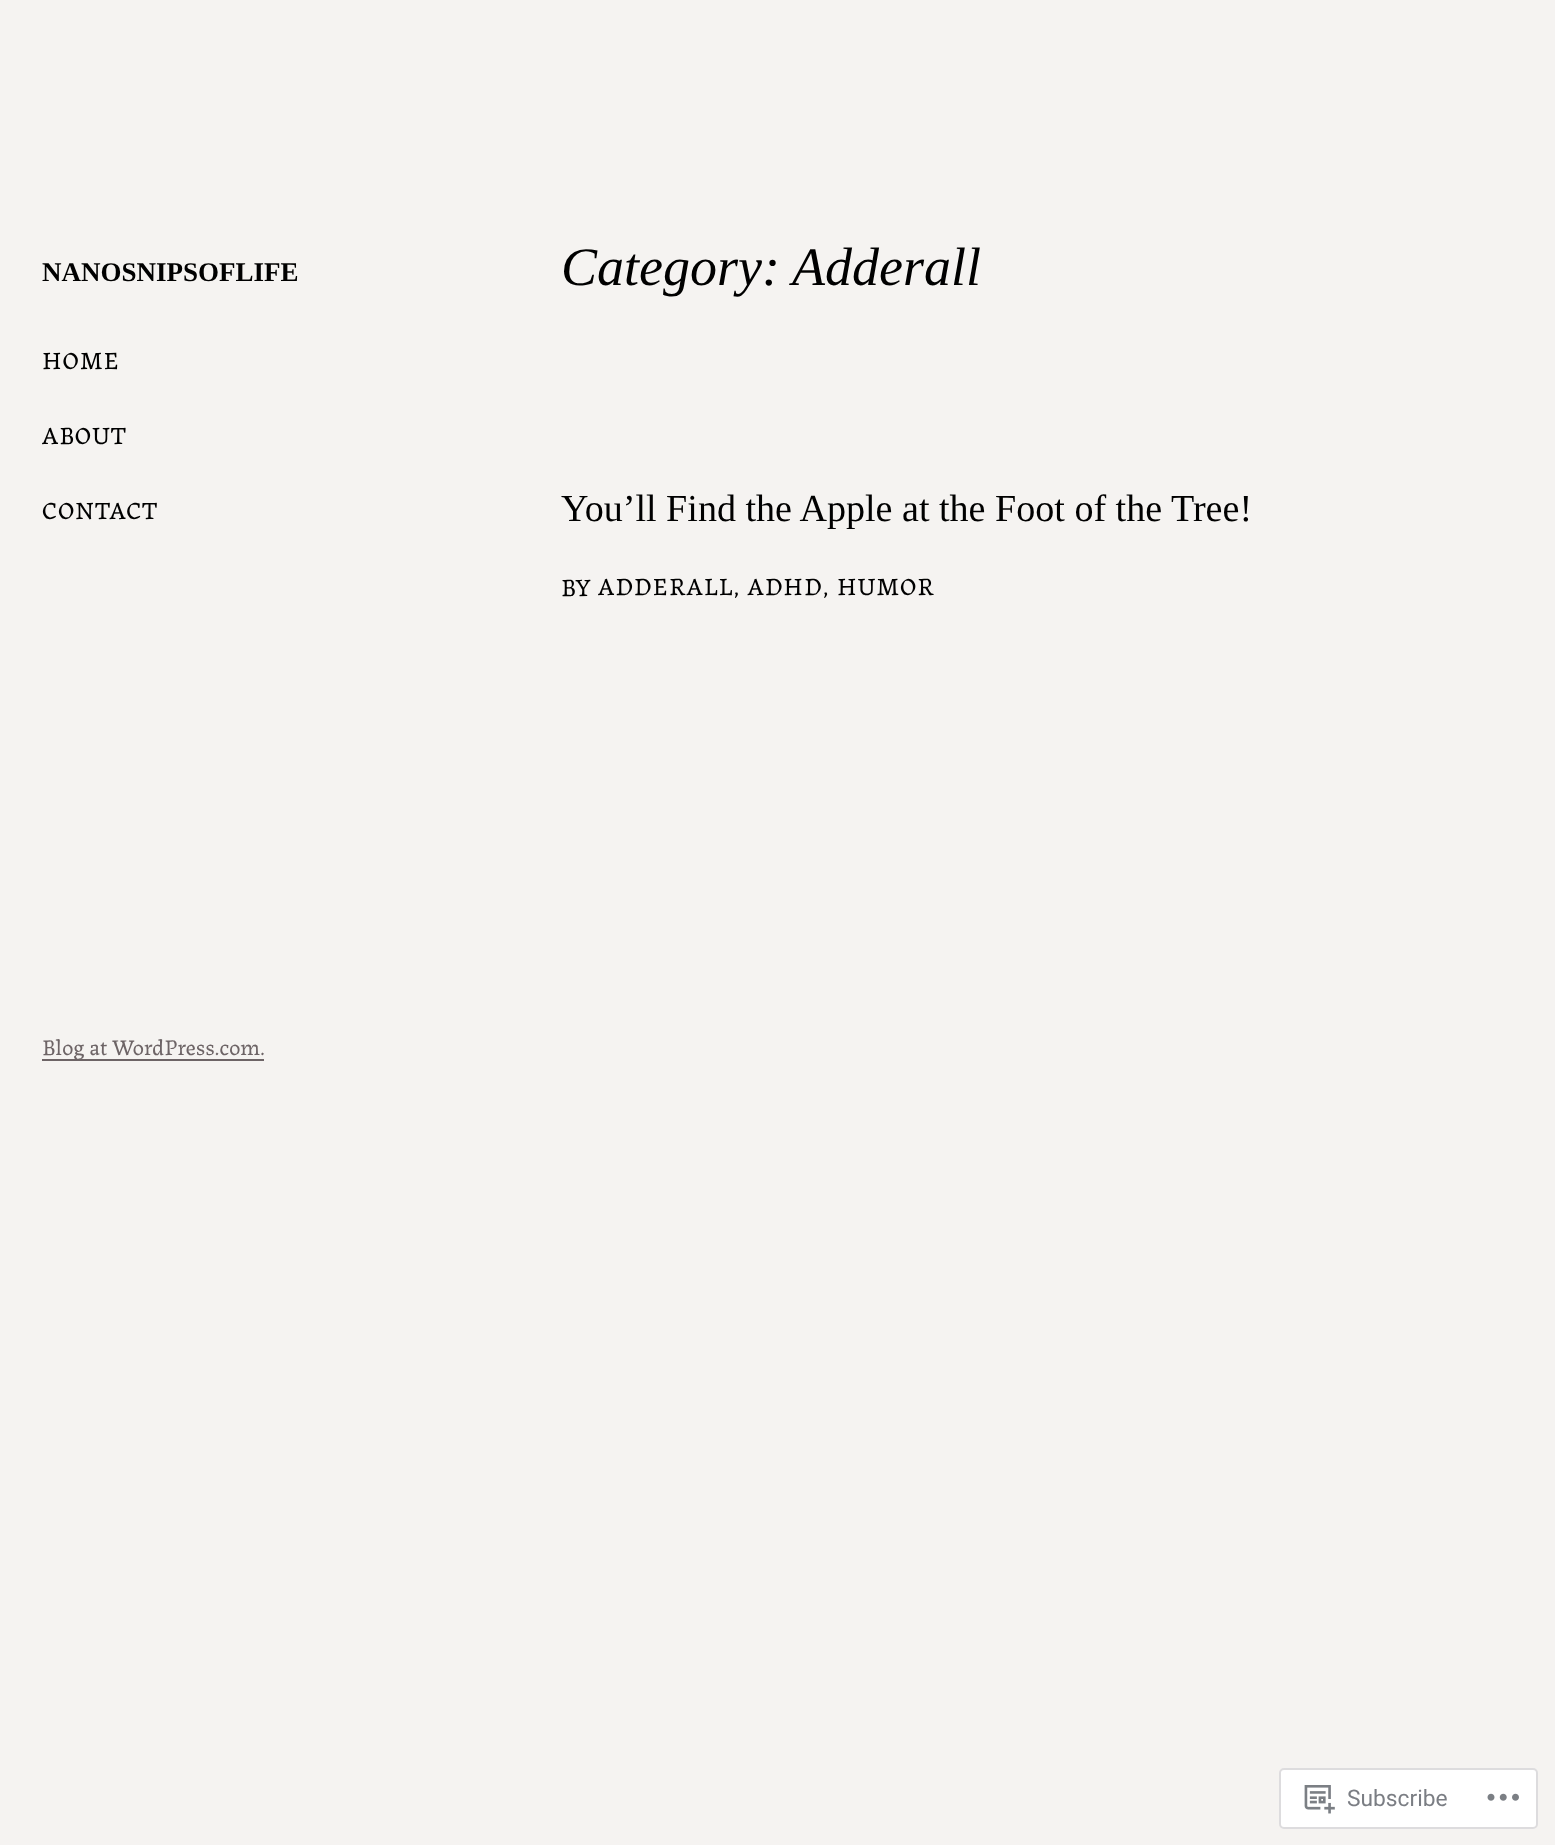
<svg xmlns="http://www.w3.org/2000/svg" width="1555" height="1845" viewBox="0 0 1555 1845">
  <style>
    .t1 { font: bold 27px Liberation Serif; fill: #000; }
    .t2 { font: 25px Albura; letter-spacing: 1px; fill: #000; }
    .t3 { font: italic 54px Liberation Serif; fill: #000; }
    .t4 { font: 38.1px Liberation Serif; fill: #000; }
    .t5 { font: 25px Albura; fill: #000; }
    .t6 { font: 22.5px Albura; fill: #6d6466; }
    .t7 { font: 22.75px Roboto; fill: #7b7e84; }
  </style>
  <rect width="100%" height="100%" fill="#f5f3f1"/>
  <text x="42" y="281" class="t1">NANOSNIPSOFLIFE</text>
  <text x="42" y="369" class="t2">HOME</text>
  <text x="42" y="444" class="t2">ABOUT</text>
  <text x="42" y="519" class="t2">CONTACT</text>
  <text x="561" y="285" class="t3">Category:</text>
  <text x="792" y="285" class="t3">Adderall</text>
  <text x="561" y="521" class="t4">You’ll Find the Apple at the Foot of the Tree!</text>
  <text x="561" y="596" class="t5">BY</text>
  <text x="598" y="595" class="t2">ADDERALL, ADHD, HUMOR</text>
  <rect x="42" y="1059" width="222" height="2" fill="#6d6466"/>
  <text x="42" y="1055" class="t6">Blog at WordPress.com.</text>
  <rect x="1280" y="1769" width="257" height="59" rx="4" fill="#fff" stroke="#dddcde" stroke-width="2"/>
  <image x="1304" y="1785" width="31" height="29" href="images/1.png"/>
  <text x="1347" y="1806" class="t7">Subscribe</text>
  <image x="1487" y="1793" width="32" height="8" href="images/2.png"/>
</svg>
